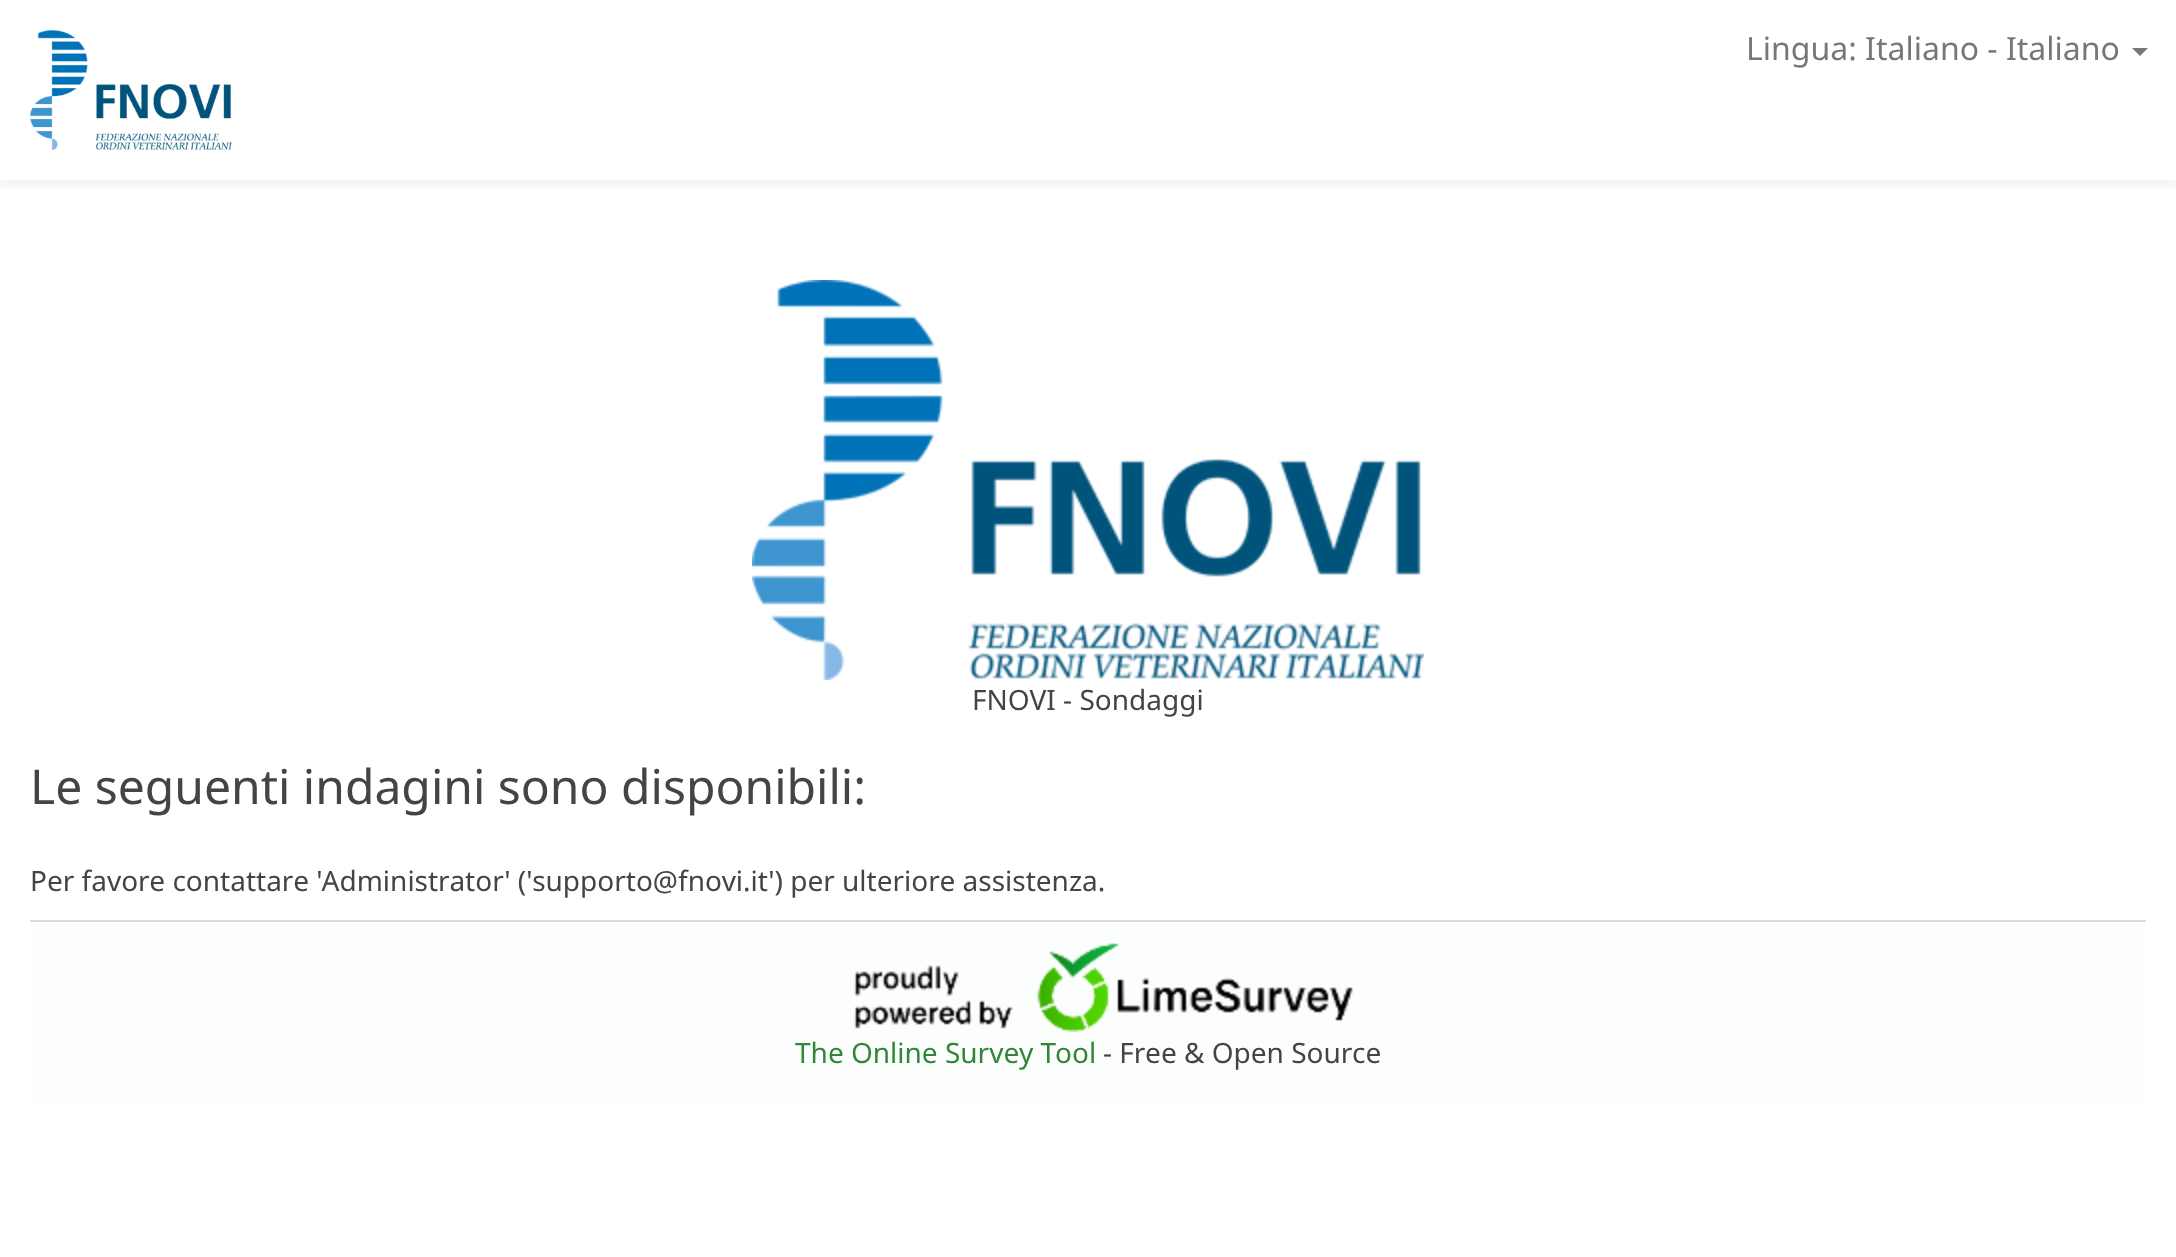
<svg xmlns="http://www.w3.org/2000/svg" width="2176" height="1257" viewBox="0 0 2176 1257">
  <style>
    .t1 { font: 32px Noto Sans; fill: #777; }
    .t2 { font: 28px Noto Sans; fill: #444; }
    .t3 { font: 48px Noto Sans; fill: #444; }
    .t4 { font: 28px Noto Sans; fill: #328637; }
  </style>
  <defs>
    <clipPath id="clip1"><rect x="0" y="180" width="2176" height="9"/></clipPath>
  </defs>
  <rect width="100%" height="100%" fill="#fff"/>
  <g clip-path="url(#clip1)">
    <rect x="0" y="6" width="2176" height="180" fill="#84888a1a" filter="blur(3px)"/>
  </g>
  <image x="30" y="30" width="202" height="120" href="images/1.png"/>
  <text x="1746" y="60" class="t1">Lingua: Italiano - Italiano</text>
  <path d="M2132 48H2148L2140 56Z" fill="#777"/>
  <image x="752" y="280" width="672" height="400" href="images/2.png"/>
  <text x="972" y="710" class="t2">FNOVI - Sondaggi</text>
  <text x="30" y="804" class="t3">Le seguenti indagini sono disponibili:</text>
  <text x="30" y="891" class="t2">Per favore contattare 'Administrator' ('supporto@fnovi.it') per ulteriore assistenza.</text>
  <rect x="30" y="922" width="2116" height="180" fill="#fcfdfd"/>
  <rect x="30" y="920" width="2116" height="2" fill="#dadada"/>
  <image x="853" y="943" width="500" height="89" href="images/3.png"/>
  <text x="795" y="1063" class="t4">The Online Survey Tool</text>
  <text x="1103" y="1063" class="t2">- Free &amp; Open Source</text>
</svg>
